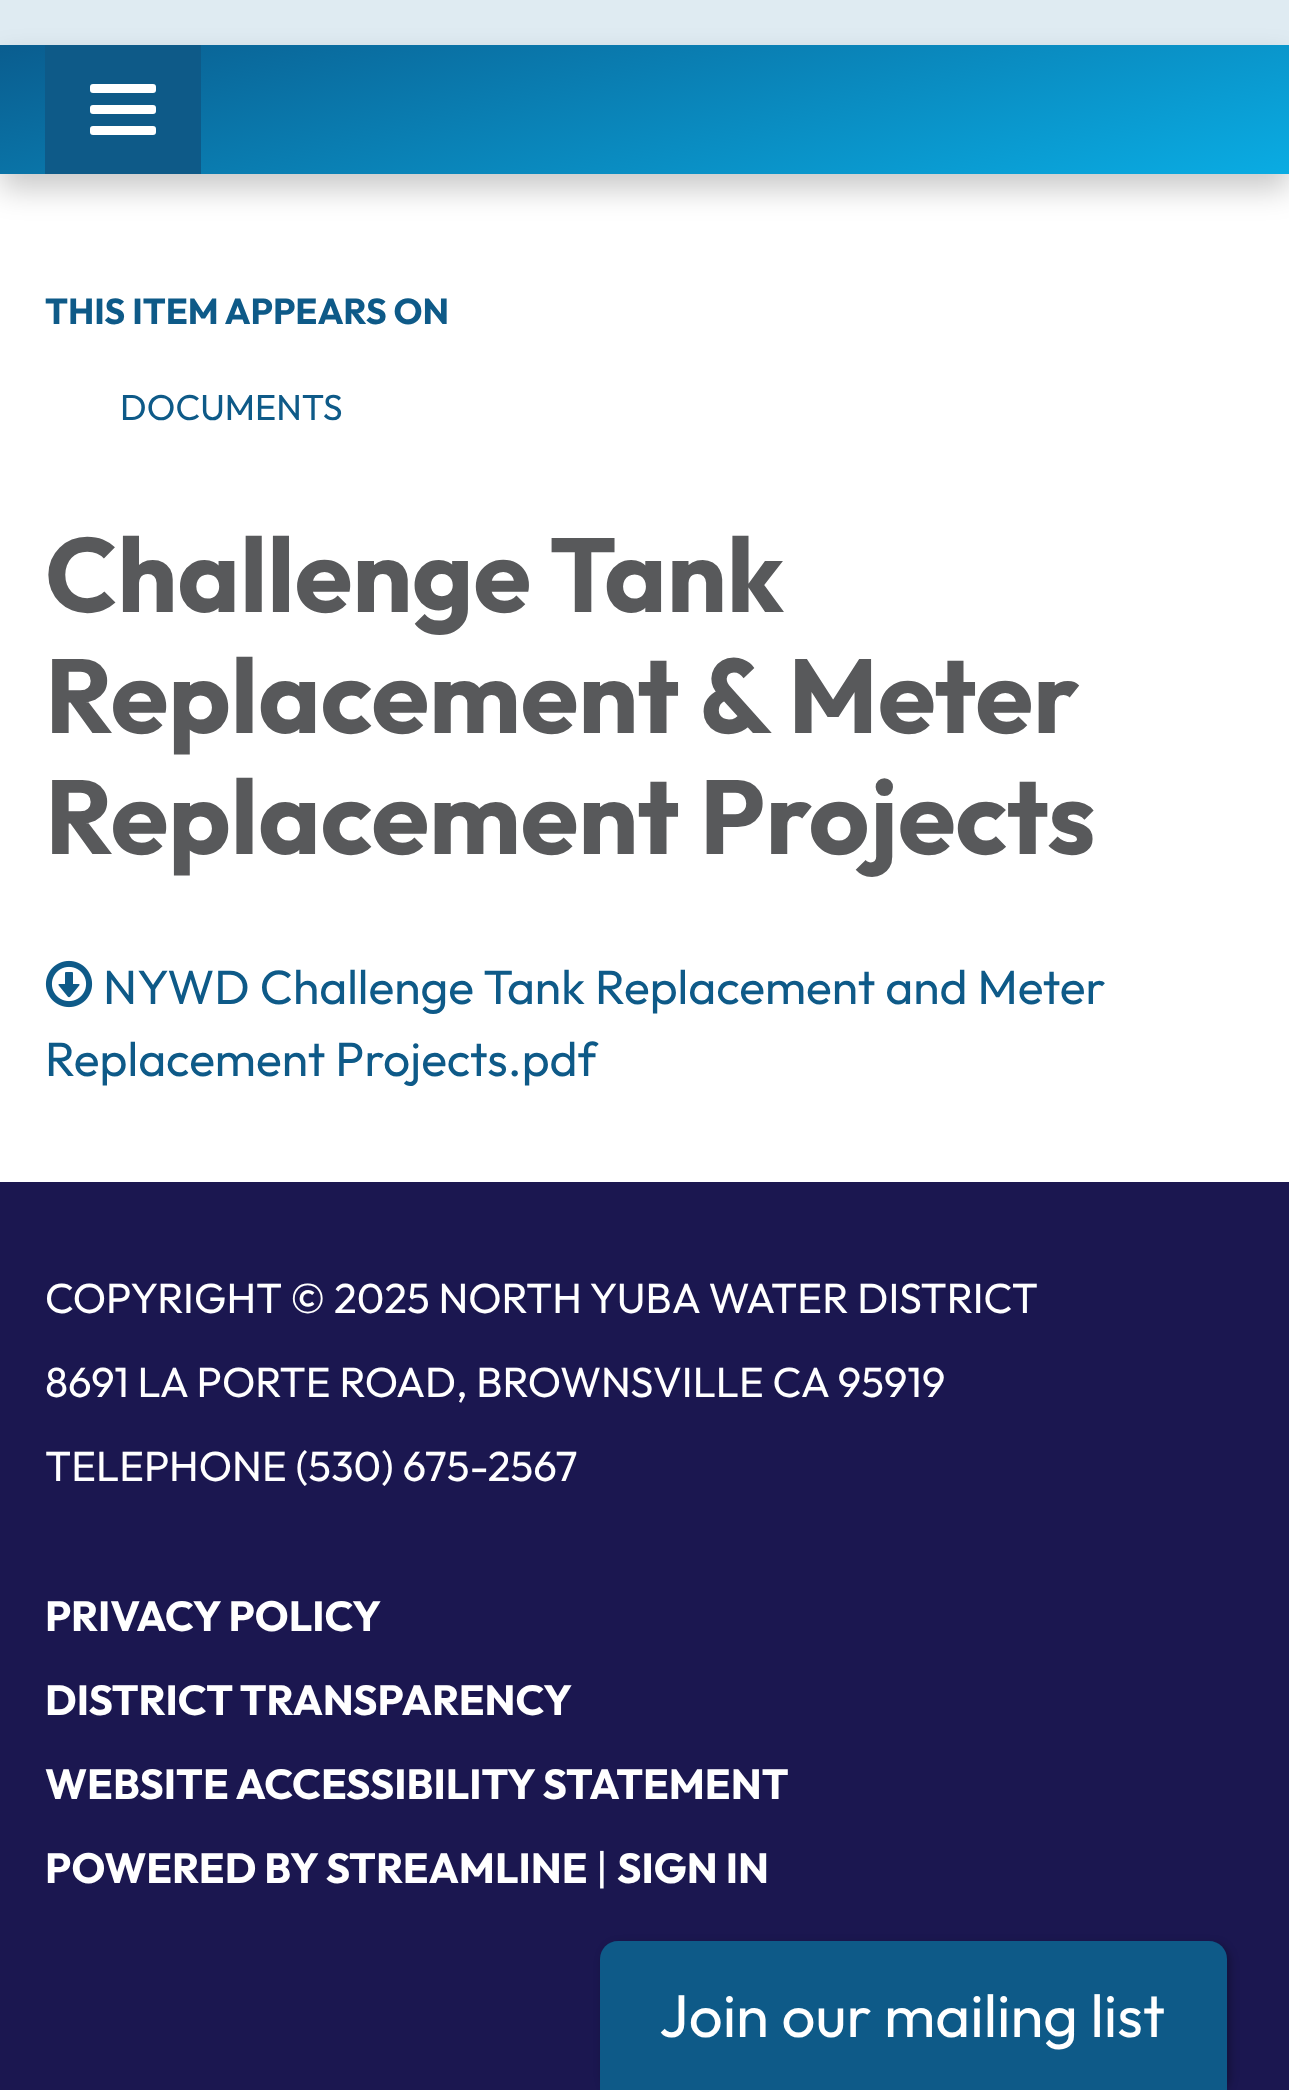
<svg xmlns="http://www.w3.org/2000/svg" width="1289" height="2090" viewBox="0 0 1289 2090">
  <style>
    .t1 { font: bold 36px Outfit; fill: #0e5a88; }
    .t2 { font: 36px Outfit; fill: #0e5a88; }
    .t3 { font: bold 105px Outfit; fill: #58595b; }
    .t4 { font: 48px Outfit; fill: #0e5a88; }
    .t5 { font: 42px Outfit; fill: #fff; }
    .t6 { font: bold 42px Outfit; fill: #fff; }
    .t7 { font: 60px Outfit; fill: #fff; }
  </style>
  <defs>
    <linearGradient id="g1" gradientUnits="userSpaceOnUse" x1="586" y1="-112" x2="704" y2="331"><stop offset="0" stop-color="#020024"/><stop offset="0" stop-color="#0a5d8f"/><stop offset="1" stop-color="#0aace3"/></linearGradient>
  </defs>
  <rect width="100%" height="100%" fill="#1b1750"/>
  <rect x="0" y="0" width="1289" height="45" fill="#dfebf2"/>
  <rect x="0" y="174" width="1289" height="1008" fill="#fff"/>
  <rect x="0" y="60" width="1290" height="129" fill="#00000036" filter="blur(15px)"/>
  <rect x="0" y="45" width="1289" height="129" fill="url(#g1)"/>
  <rect x="45" y="45" width="156" height="129" fill="#0e5a88"/>
  <rect x="90" y="84" width="66" height="9" rx="3" fill="#fff"/>
  <rect x="90" y="105" width="66" height="9" rx="3" fill="#fff"/>
  <rect x="90" y="126" width="66" height="9" rx="3" fill="#fff"/>
  <text x="45" y="324" class="t1">THIS ITEM APPEARS ON</text>
  <text x="120" y="420" class="t2">DOCUMENTS</text>
  <text x="45" y="612" class="t3">Challenge Tank</text>
  <text x="45" y="733" class="t3">Replacement &amp; Meter</text>
  <text x="45" y="854" class="t3">Replacement Projects</text>
  <image x="45" y="960" width="48" height="48" href="images/1.png"/>
  <text x="103" y="1004" class="t4">NYWD Challenge Tank Replacement and Meter</text>
  <text x="45" y="1076" class="t4">Replacement Projects.pdf</text>
  <text x="45" y="1313" class="t5">COPYRIGHT © 2025 NORTH YUBA WATER DISTRICT</text>
  <text x="45" y="1397" class="t5">8691 LA PORTE ROAD, BROWNSVILLE CA 95919</text>
  <text x="45" y="1481" class="t5">TELEPHONE (530) 675-2567</text>
  <text x="45" y="1631" class="t6">PRIVACY POLICY</text>
  <text x="45" y="1715" class="t6">DISTRICT TRANSPARENCY</text>
  <text x="45" y="1799" class="t6">WEBSITE ACCESSIBILITY STATEMENT</text>
  <text x="45" y="1883" class="t6">POWERED BY STREAMLINE</text>
  <text x="596" y="1883" class="t5">|</text>
  <text x="617" y="1883" class="t6">SIGN IN</text>
  <rect x="603" y="1944" width="627" height="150" rx="18" fill="#0000004d" filter="blur(4.5px)"/>
  <path d="M618 1941H1209C1219 1941 1227 1949 1227 1959V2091H600V1959C600 1949 608 1941 618 1941Z" fill="#0e5a88"/>
  <text x="659" y="2037" class="t7">Join our mailing list</text>
</svg>
